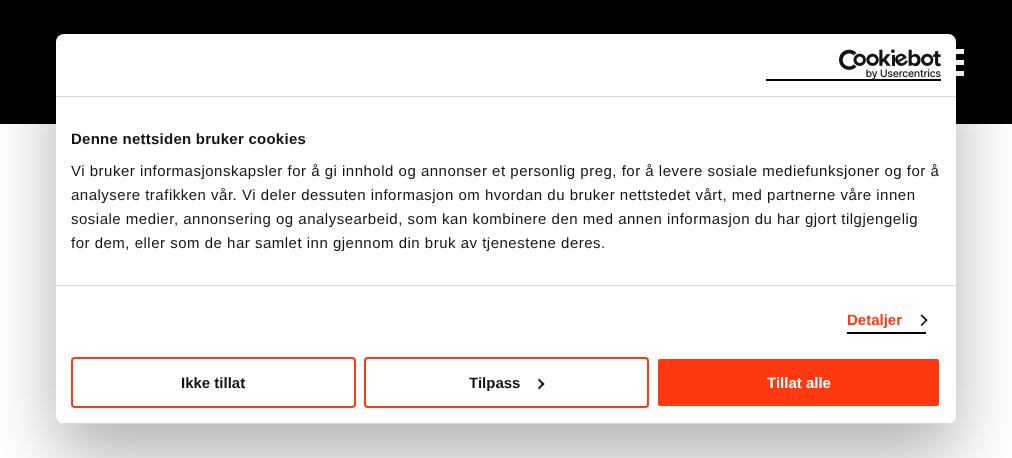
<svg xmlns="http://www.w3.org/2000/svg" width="1012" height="458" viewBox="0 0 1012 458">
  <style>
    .t1 { font: bold 15px Liberation Sans; letter-spacing: 0.25px; fill: #141414; }
    .t2 { font: 15px Liberation Sans; letter-spacing: 0.5px; fill: #141414; }
    .t3 { font: bold 15px Liberation Sans; fill: #fe390f; }
    .t4 { font: bold 15px Liberation Sans; fill: #141414; }
    .t5 { font: bold 15px Liberation Sans; fill: #fff; }
  </style>
  <defs>
    <clipPath id="clip1"><rect x="56" y="34" width="900" height="390" rx="8"/></clipPath>
  </defs>
  <rect width="100%" height="100%" fill="#fff"/>
  <rect x="0" y="0" width="1012" height="124" fill="#000"/>
  <rect x="956" y="49" width="8" height="5" fill="#fff"/>
  <rect x="956" y="60" width="8" height="5" fill="#fff"/>
  <rect x="956" y="71" width="8" height="5" fill="#fff"/>
  <rect x="56" y="66" width="900" height="390" rx="8" fill="#0000004d" filter="blur(34px)"/>
  <rect x="56" y="34" width="900" height="390" rx="8" fill="#fff"/>
  <rect x="56" y="96" width="900" height="1" fill="#d6d6d6"/>
  <rect x="766" y="79" width="175" height="2" fill="#000"/>
  <image x="839" y="49" width="102" height="30" href="images/1.png"/>
  <rect x="56" y="285" width="900" height="1" fill="#d6d6d6"/>
  <text x="71" y="144" class="t1">Denne nettsiden bruker cookies</text>
  <text x="71" y="176" class="t2">Vi bruker informasjonskapsler for å gi innhold og annonser et personlig preg, for å levere sosiale mediefunksjoner og for å</text>
  <text x="71" y="200" class="t2">analysere trafikken vår. Vi deler dessuten informasjon om hvordan du bruker nettstedet vårt, med partnerne våre innen</text>
  <text x="71" y="224" class="t2">sosiale medier, annonsering og analysearbeid, som kan kombinere den med annen informasjon du har gjort tilgjengelig</text>
  <text x="71" y="248" class="t2">for dem, eller som de har samlet inn gjennom din bruk av tjenestene deres.</text>
  <rect x="847" y="332" width="79" height="2" fill="#000"/>
  <text x="847" y="325" class="t3">Detaljer</text>
  <path d="M922 314.5L927.5 320L926.5 321.5L920.5 315.5Z" fill="#141414"/>
  <path d="M926.5 319L927.5 320L922 326L920.5 325Z" fill="#141414"/>
  <g clip-path="url(#clip1)">
    <rect x="56" y="423" width="900" height="1" fill="#d6d6d6"/>
  </g>
  <rect x="72" y="358" width="283" height="49" rx="3" fill="none" stroke="#fe390f" stroke-width="2"/>
  <text x="181" y="388" class="t4">Ikke tillat</text>
  <rect x="365" y="358" width="283" height="49" rx="3" fill="none" stroke="#fe390f" stroke-width="2"/>
  <text x="469" y="388" class="t4">Tilpass</text>
  <path d="M539 378.5L544.5 384L543 385.5L538 380Z" fill="#141414"/>
  <path d="M543 382.5L544.5 384L539 389.5L538 388Z" fill="#141414"/>
  <rect x="657" y="358" width="283" height="49" rx="3" fill="#fe390f" stroke="#fff" stroke-width="2"/>
  <text x="767" y="388" class="t5">Tillat alle</text>
</svg>
